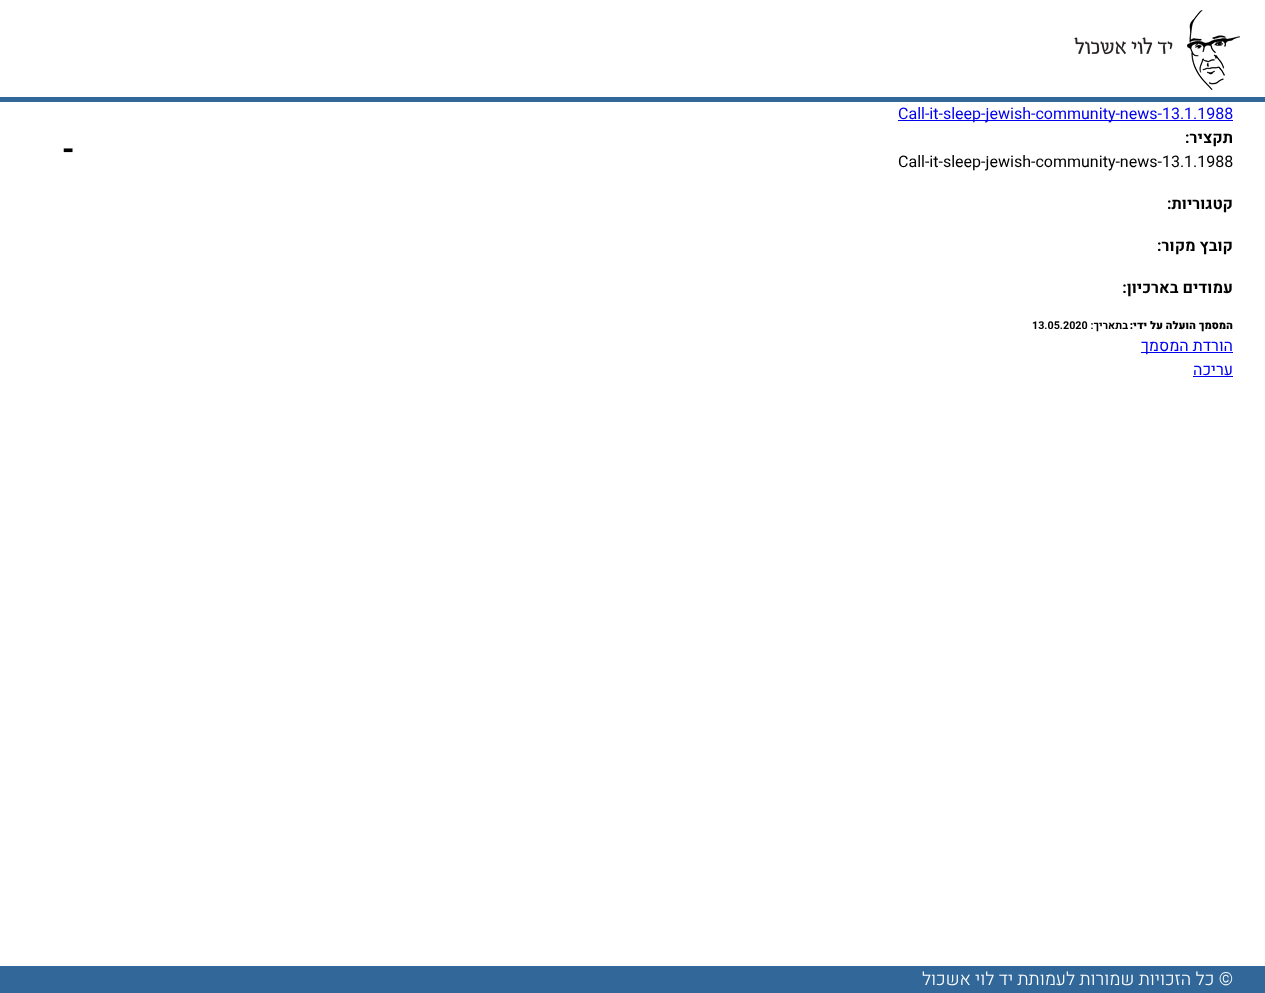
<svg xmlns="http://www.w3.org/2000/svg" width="1265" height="993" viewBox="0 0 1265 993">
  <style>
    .t1 { font: 16px Heebo; fill: #00e; }
    .t2 { font: bold 16px Heebo; direction: rtl; fill: #000; }
    .t3 { font: bold 32px Heebo; fill: #000; }
    .t4 { font: 16px Heebo; fill: #000; }
    .t5 { font: 900 10.75px Heebo; direction: rtl; fill: #000; }
    .t6 { font: bold 10.75px Heebo; direction: rtl; fill: #000; }
    .t7 { font: bold 10.75px Heebo; fill: #000; }
    .t8 { font: 16px Heebo; direction: rtl; fill: #00e; }
    .t9 { font: 300 18px Heebo; direction: rtl; fill: #fff; }
  </style>
  <rect width="100%" height="100%" fill="#fff"/>
  <rect x="0" y="97" width="1265" height="5" fill="#316799"/>
  <image x="1074" y="10" width="166" height="80" href="images/1.png"/>
  <rect x="898" y="120" width="335" height="1" fill="#00e"/>
  <text x="898" y="119" class="t1">Call-it-sleep-jewish-community-news-13.1.1988</text>
  <text x="1233" y="143" class="t2">תקציר:</text>
  <text x="62" y="160" class="t3">-</text>
  <text x="898" y="167" class="t4">Call-it-sleep-jewish-community-news-13.1.1988</text>
  <text x="1233" y="209" class="t2">קטגוריות:</text>
  <text x="1233" y="251" class="t2">קובץ מקור:</text>
  <text x="1233" y="293" class="t2">עמודים בארכיון:</text>
  <text x="1233" y="329" class="t5">המסמך הועלה על ידי:</text>
  <text x="1128" y="329" class="t6">בתאריך:</text>
  <text x="1032" y="329" class="t7">13.05.2020</text>
  <rect x="1141" y="352" width="92" height="1" fill="#00e"/>
  <text x="1233" y="351" class="t8">הורדת המסמך</text>
  <text x="1233" y="375" class="t8">עריכה</text>
  <rect x="1193" y="376" width="40" height="1" fill="#00e"/>
  <rect x="0" y="966" width="1265" height="27" fill="#316799"/>
  <text x="1233" y="985" class="t9">© כל הזכויות שמורות לעמותת יד לוי אשכול</text>
</svg>
